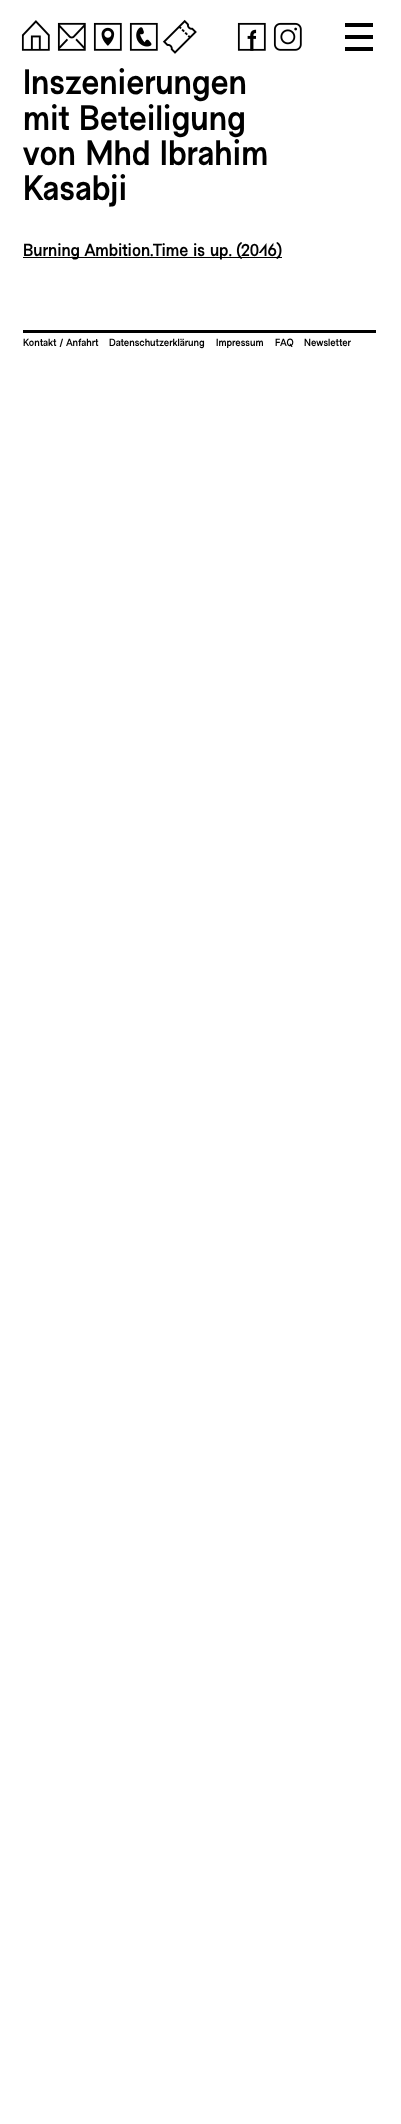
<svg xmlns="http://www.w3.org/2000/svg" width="401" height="2124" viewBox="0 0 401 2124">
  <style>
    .t1 { font: 35.25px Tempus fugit; fill: #000; }
    .t2 { font: 17.6px Tempus fugit; fill: #000; }
    .t3 { font: 10.5px Tempus fugit; fill: #000; }
  </style>
  <rect width="100%" height="100%" fill="#fff"/>
  <image x="21" y="20" width="29" height="31" href="images/1.png"/>
  <image x="57" y="22" width="29" height="29" href="images/2.png"/>
  <image x="93" y="22" width="29" height="29" href="images/3.png"/>
  <image x="129" y="22" width="29" height="29" href="images/4.png"/>
  <image x="162" y="19" width="35" height="35" href="images/5.png"/>
  <image x="237" y="22" width="29" height="29" href="images/6.png"/>
  <image x="273" y="22" width="29" height="29" href="images/7.png"/>
  <rect x="345" y="23" width="28" height="4" fill="#000"/>
  <rect x="345" y="35" width="28" height="4" fill="#000"/>
  <rect x="345" y="47" width="28" height="4" fill="#000"/>
  <text x="23" y="94" class="t1">Inszenierungen</text>
  <text x="23" y="130" class="t1">mit Beteiligung</text>
  <text x="23" y="165" class="t1">von Mhd Ibrahim</text>
  <text x="23" y="200" class="t1">Kasabji</text>
  <rect x="23" y="257" width="259" height="1" fill="#000"/>
  <text x="23" y="256" class="t2">Burning Ambition.Time is up. (2016)</text>
  <rect x="23" y="330" width="353" height="3" fill="#000"/>
  <text x="23" y="346" class="t3">Kontakt / Anfahrt</text>
  <text x="109" y="346" class="t3">Datenschutzerklärung</text>
  <text x="216" y="346" class="t3">Impressum</text>
  <text x="275" y="346" class="t3">FAQ</text>
  <text x="304" y="346" class="t3">Newsletter</text>
</svg>
